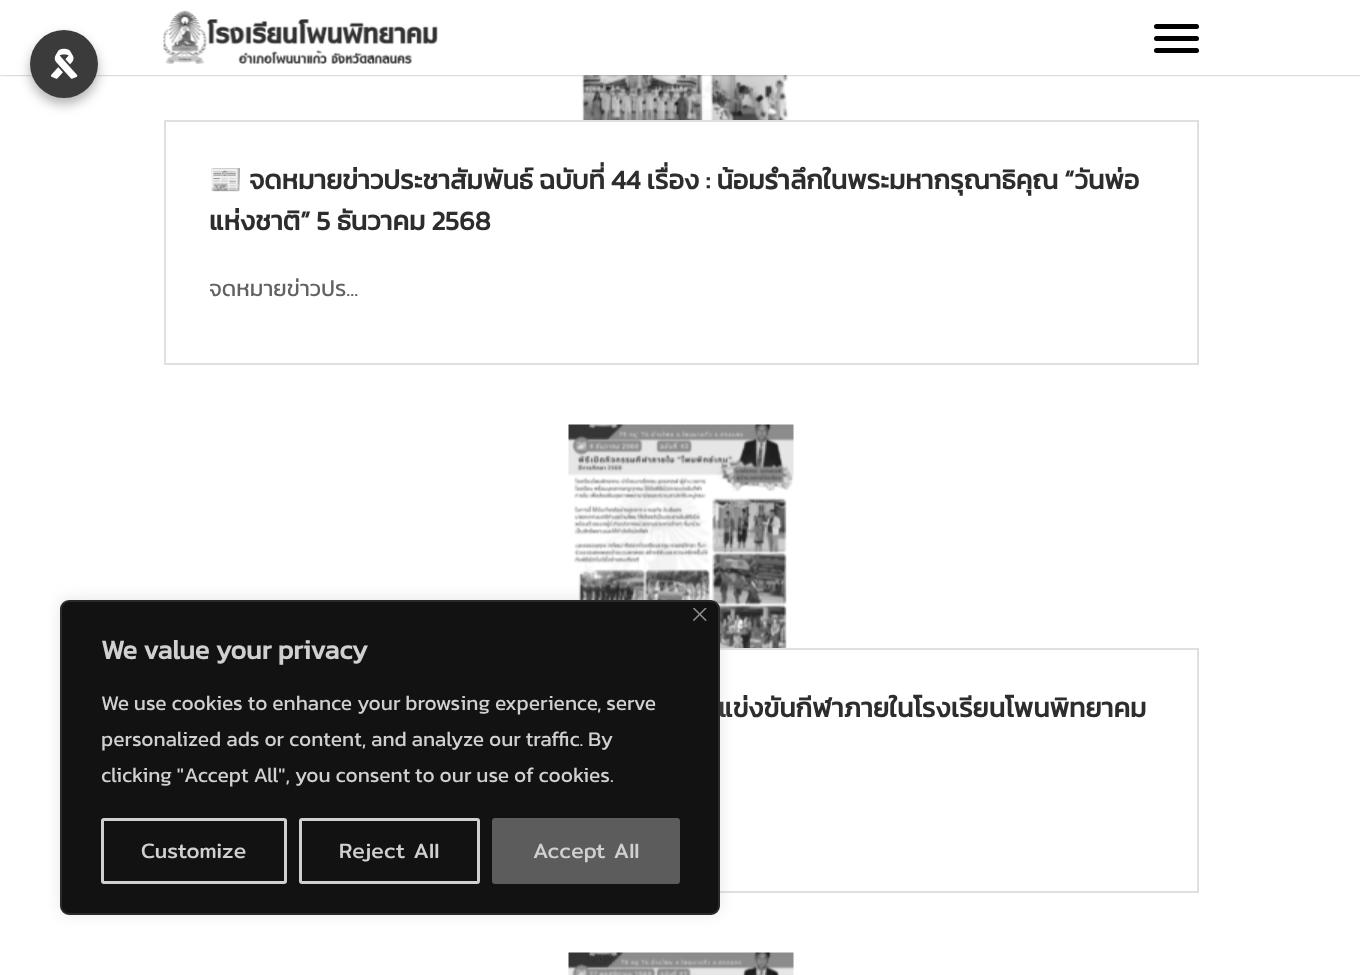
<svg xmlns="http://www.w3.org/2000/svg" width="1360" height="975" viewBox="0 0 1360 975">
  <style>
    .t1 { font: bold 27px Noto Color Emoji; fill: #2d2d2d; }
    .t2 { font: bold 27px Kanit; fill: #2d2d2d; }
    .t3 { font: 22.5px Kanit; fill: #626262; }
    .t4 { font: bold 27px Kanit; fill: #d0d0d0; }
    .t5 { font: 21px Kanit; fill: #d0d0d0; }
    .t6 { font: 21px Mitr; fill: #d0d0d0; }
  </style>
  <rect width="100%" height="100%" fill="#fff"/>
  <image x="574" y="75" width="214" height="45" href="images/3.png"/>
  <rect x="0" y="0" width="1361" height="75" fill="#00000066" filter="blur(1px)"/>
  <rect x="0" y="0" width="1360" height="75" fill="#fff"/>
  <rect x="30" y="36" width="68" height="68" rx="34" fill="#0000004d" filter="blur(6px)"/>
  <circle cx="64" cy="64" r="34" fill="#3b3b3b"/>
  <image x="51" y="48" width="27" height="31" href="images/1.png"/>
  <image x="163" y="10" width="275" height="54" href="images/2.png"/>
  <rect x="1154" y="24" width="45" height="5" rx="2.5" fill="#000"/>
  <rect x="1154" y="36" width="45" height="5" rx="2.5" fill="#000"/>
  <rect x="1154" y="48" width="45" height="5" rx="2.5" fill="#000"/>
  <rect x="165" y="121" width="1033" height="243" fill="none" stroke="#e0e0e0" stroke-width="2"/>
  <text x="209" y="189" class="t1">📰</text>
  <text x="249" y="189" class="t2">จดหมายข่าวประชาสัมพันธ์ ฉบับที่ 44 เรื่อง : น้อมรำลึกในพระมหากรุณาธิคุณ “วันพ่อ</text>
  <text x="209" y="230" class="t2">แห่งชาติ” 5 ธันวาคม 2568</text>
  <text x="209" y="296" class="t3">จดหมายข่าวปร...</text>
  <image x="568" y="424" width="226" height="224" href="images/4.png"/>
  <rect x="165" y="649" width="1033" height="243" fill="none" stroke="#e0e0e0" stroke-width="2"/>
  <text x="718" y="717" class="t2">แข่งขันกีฬาภายในโรงเรียนโพนพิทยาคม</text>
  <image x="568" y="952" width="226" height="23" href="images/5.png"/>
  <rect x="60" y="599" width="660" height="315" rx="9" fill="#ababab4d" filter="blur(7.5px)"/>
  <rect x="61" y="601" width="658" height="313" rx="8" fill="#121212" stroke="#2a2a2a" stroke-width="2"/>
  <image x="693" y="608" width="14" height="13" href="images/6.png"/>
  <text x="101" y="659" class="t4">We value your privacy</text>
  <text x="101" y="710" class="t5">We use cookies to enhance your browsing experience, serve</text>
  <text x="101" y="746" class="t5">personalized ads or content, and analyze our traffic. By</text>
  <text x="101" y="782" class="t5">clicking "Accept All", you consent to our use of cookies.</text>
  <rect x="102.5" y="819.5" width="183" height="63" rx="1.5" fill="none" stroke="#d0d0d0" stroke-width="3"/>
  <text x="141" y="858" class="t6">Customize</text>
  <rect x="300.5" y="819.5" width="178" height="63" rx="1.5" fill="none" stroke="#d0d0d0" stroke-width="3"/>
  <text x="339" y="858" class="t6">Reject All</text>
  <rect x="493.5" y="819.5" width="185" height="63" rx="1.5" fill="#5c5c5c" stroke="#5c5c5c" stroke-width="3"/>
  <text x="533" y="858" class="t6">Accept All</text>
</svg>
